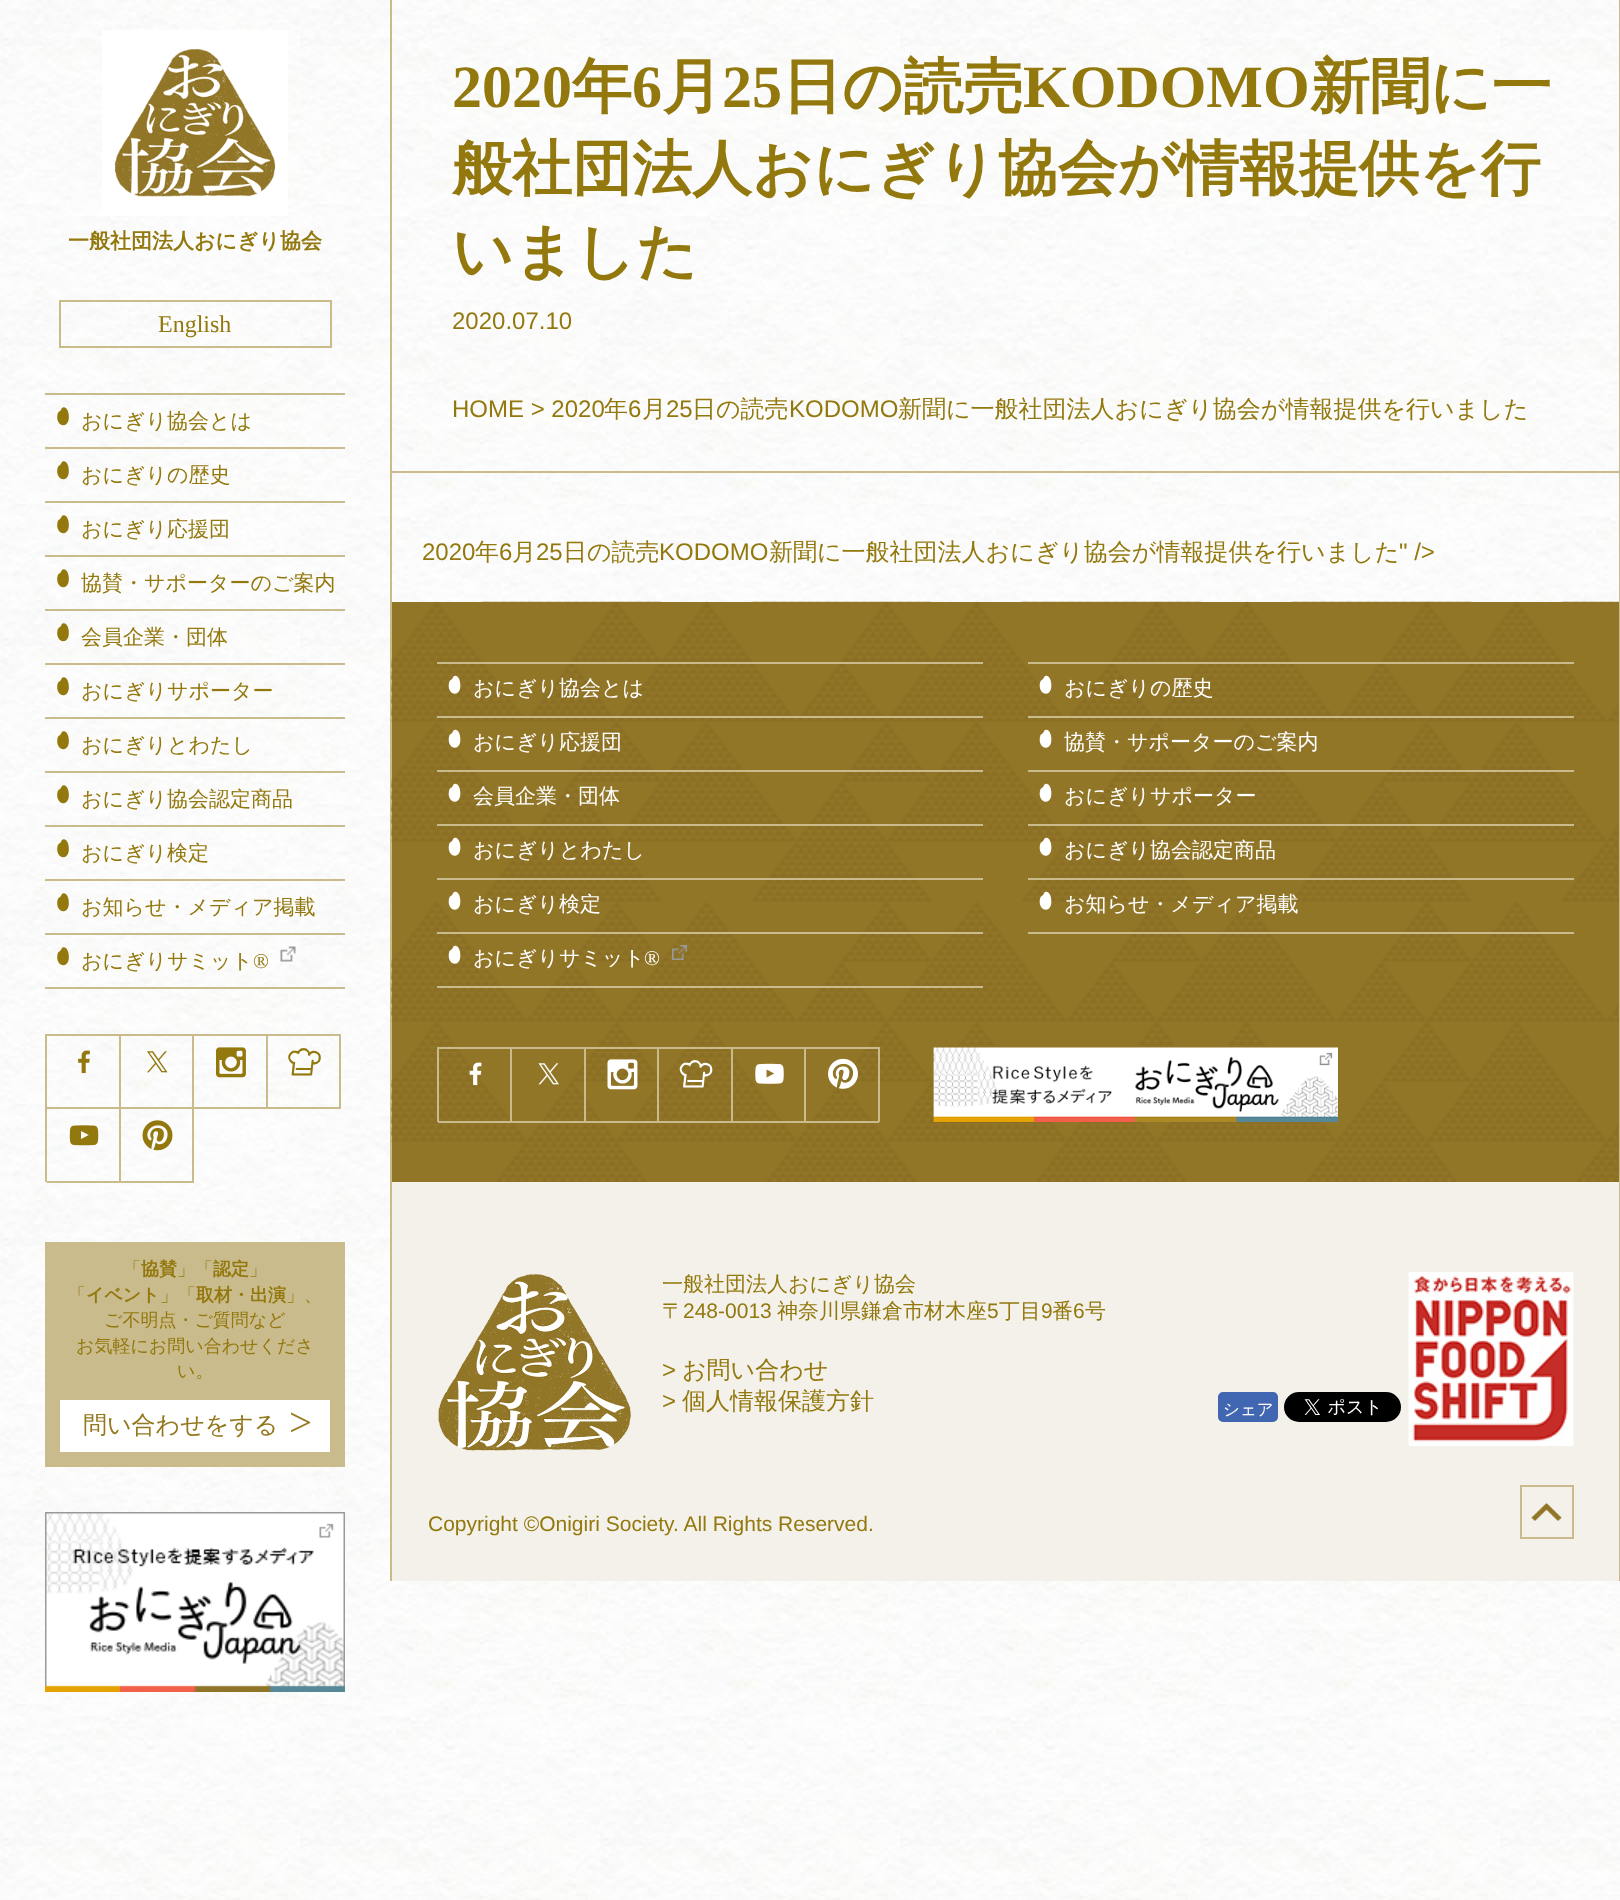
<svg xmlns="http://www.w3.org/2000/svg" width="1620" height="1900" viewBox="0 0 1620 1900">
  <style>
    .t1 { font: bold 21px WenQuanYi Zen Hei; fill: #93780e; }
    .t2 { font: 24px Liberation Serif; fill: #93780e; }
    .t3 { font: 500 21px WenQuanYi Zen Hei; fill: #93780e; }
    .t4 { font: 21px Liberation Serif; fill: #93780e; }
    .t5 { font: 500 18px WenQuanYi Zen Hei; fill: #93780e; }
    .t6 { font: bold 18px WenQuanYi Zen Hei; fill: #93780e; }
    .t7 { font: 500 24px WenQuanYi Zen Hei; fill: #93781e; }
    .t8 { font: 41px Liberation Serif; letter-spacing: -14px; fill: #93781e; }
    .t9 { font: bold 60px Liberation Serif; fill: #93780e; }
    .t10 { font: bold 60px WenQuanYi Zen Hei; fill: #93780e; }
    .t11 { font: 24px Liberation Sans; fill: #93780e; }
    .t12 { font: 500 24px WenQuanYi Zen Hei; fill: #93780e; }
    .t13 { font: 500 21px WenQuanYi Zen Hei; fill: #fff; }
    .t14 { font: 21px Liberation Serif; fill: #fff; }
    .t15 { font: 21px Liberation Sans; fill: #93780e; }
    .t16 { font: 500 16.5px WenQuanYi Zen Hei; fill: #fff; }
  </style>
  <rect width="100%" height="100%" fill="#fff"/>
  <image x="0" y="0" width="1620" height="1900" href="images/1.png"/>
  <image x="102" y="30" width="186" height="186" href="images/2.png"/>
  <text x="68" y="248" class="t1">一般社団法人おにぎり協会</text>
  <rect x="60" y="301" width="271" height="46" fill="none" stroke="#c9bc88" stroke-width="2"/>
  <text x="158" y="332" class="t2">English</text>
  <rect x="45" y="393" width="300" height="2" fill="#c9bb8b"/>
  <rect x="45" y="447" width="300" height="2" fill="#c9bb8b"/>
  <image x="57" y="407" width="12" height="19" href="images/3.png"/>
  <text x="81" y="428" class="t3">おにぎり協会とは</text>
  <rect x="45" y="501" width="300" height="2" fill="#c9bb8b"/>
  <image x="57" y="461" width="12" height="19" href="images/4.png"/>
  <text x="81" y="482" class="t3">おにぎりの歴史</text>
  <rect x="45" y="555" width="300" height="2" fill="#c9bb8b"/>
  <image x="57" y="515" width="12" height="19" href="images/5.png"/>
  <text x="81" y="536" class="t3">おにぎり応援団</text>
  <rect x="45" y="609" width="300" height="2" fill="#c9bb8b"/>
  <image x="57" y="569" width="12" height="19" href="images/6.png"/>
  <text x="81" y="590" class="t3">協賛・サポーターのご案内</text>
  <rect x="45" y="663" width="300" height="2" fill="#c9bb8b"/>
  <image x="57" y="623" width="12" height="19" href="images/7.png"/>
  <text x="81" y="644" class="t3">会員企業・団体</text>
  <rect x="45" y="717" width="300" height="2" fill="#c9bb8b"/>
  <image x="57" y="677" width="12" height="19" href="images/8.png"/>
  <text x="81" y="698" class="t3">おにぎりサポーター</text>
  <rect x="45" y="771" width="300" height="2" fill="#c9bb8b"/>
  <image x="57" y="731" width="12" height="19" href="images/9.png"/>
  <text x="81" y="752" class="t3">おにぎりとわたし</text>
  <rect x="45" y="825" width="300" height="2" fill="#c9bb8b"/>
  <image x="57" y="785" width="12" height="19" href="images/10.png"/>
  <text x="81" y="806" class="t3">おにぎり協会認定商品</text>
  <rect x="45" y="879" width="300" height="2" fill="#c9bb8b"/>
  <image x="57" y="839" width="12" height="19" href="images/11.png"/>
  <text x="81" y="860" class="t3">おにぎり検定</text>
  <rect x="45" y="933" width="300" height="2" fill="#c9bb8b"/>
  <image x="57" y="893" width="12" height="19" href="images/12.png"/>
  <text x="81" y="914" class="t3">お知らせ・メディア掲載</text>
  <rect x="45" y="987" width="300" height="2" fill="#c9bb8b"/>
  <image x="57" y="947" width="12" height="19" href="images/13.png"/>
  <text x="81" y="968" class="t3">おにぎりサミット</text>
  <text x="253" y="968" class="t4">®</text>
  <image x="280" y="946" width="16" height="16" href="images/14.png"/>
  <rect x="45" y="1034" width="296" height="2" fill="#c9bb8b"/>
  <rect x="45" y="1034" width="2" height="148" fill="#c9bb8b"/>
  <rect x="119" y="1035" width="2" height="147" fill="#c9bb8b"/>
  <rect x="47" y="1107" width="73" height="2" fill="#c9bb8b"/>
  <image x="78" y="1050" width="12" height="24" href="images/15.png"/>
  <rect x="192" y="1035" width="2" height="147" fill="#c9bb8b"/>
  <rect x="120" y="1107" width="74" height="2" fill="#c9bb8b"/>
  <image x="147" y="1051" width="21" height="22" href="images/16.png"/>
  <rect x="266" y="1035" width="2" height="74" fill="#c9bb8b"/>
  <rect x="194" y="1107" width="73" height="2" fill="#c9bb8b"/>
  <image x="216" y="1047" width="30" height="31" href="images/17.png"/>
  <rect x="339" y="1035" width="2" height="74" fill="#c9bb8b"/>
  <rect x="267" y="1107" width="74" height="2" fill="#c9bb8b"/>
  <image x="288" y="1048" width="33" height="28" href="images/18.png"/>
  <image x="142" y="1120" width="31" height="31" href="images/19.png"/>
  <rect x="47" y="1181" width="147" height="2" fill="#c9bb8b"/>
  <image x="69" y="1125" width="30" height="21" href="images/20.png"/>
  <rect x="45" y="1242" width="300" height="225" fill="#c9bb8b"/>
  <text x="123" y="1275" class="t5">「</text>
  <text x="141" y="1275" class="t6">協賛</text>
  <text x="177" y="1275" class="t5">」「</text>
  <text x="213" y="1275" class="t6">認定</text>
  <text x="249" y="1275" class="t5">」</text>
  <text x="68" y="1301" class="t5">「</text>
  <text x="86" y="1301" class="t6">イベント</text>
  <text x="160" y="1301" class="t5">」「</text>
  <text x="196" y="1301" class="t6">取材・出演</text>
  <text x="286" y="1301" class="t5">」、</text>
  <text x="104" y="1326" class="t5">ご不明点・ご質問など</text>
  <text x="76" y="1352" class="t5">お気軽にお問い合わせくださ</text>
  <text x="177" y="1377" class="t5">い。</text>
  <rect x="60" y="1400" width="270" height="52" fill="#fff"/>
  <text x="83" y="1433" class="t7">問い合わせをする</text>
  <text x="289" y="1436" class="t8">&gt;</text>
  <image x="45" y="1512" width="300" height="180" href="images/21.png"/>
  <rect x="1619" y="0" width="1" height="1581" fill="#c9bb8b"/>
  <rect x="390" y="0" width="2" height="1581" fill="#c9bb8b"/>
  <text x="452" y="107" class="t9">2020</text>
  <text x="572" y="107" class="t10">年</text>
  <text x="632" y="107" class="t9">6</text>
  <text x="662" y="107" class="t10">月</text>
  <text x="722" y="107" class="t9">25</text>
  <text x="782" y="107" class="t10">日の読売</text>
  <text x="1023" y="107" class="t9">KODOMO</text>
  <text x="1310" y="107" class="t10">新聞に一</text>
  <text x="452" y="189" class="t10">般社団法人おにぎり協会が情報提供を行</text>
  <text x="452" y="272" class="t10">いました</text>
  <text x="452" y="329" class="t11">2020.07.10</text>
  <rect x="392" y="471" width="1227" height="2" fill="#c9bb8b"/>
  <text x="452" y="417" class="t11">HOME &gt; 2020</text>
  <text x="604" y="417" class="t12">年</text>
  <text x="628" y="417" class="t11">6</text>
  <text x="642" y="417" class="t12">月</text>
  <text x="666" y="417" class="t11">25</text>
  <text x="692" y="417" class="t12">日の読売</text>
  <text x="789" y="417" class="t11">KODOMO</text>
  <text x="898" y="417" class="t12">新聞に一般社団法人おにぎり協会が情報提供を行いました</text>
  <text x="422" y="560" class="t11">2020</text>
  <text x="475" y="560" class="t12">年</text>
  <text x="499" y="560" class="t11">6</text>
  <text x="512" y="560" class="t12">月</text>
  <text x="536" y="560" class="t11">25</text>
  <text x="563" y="560" class="t12">日の読売</text>
  <text x="659" y="560" class="t11">KODOMO</text>
  <text x="769" y="560" class="t12">新聞に一般社団法人おにぎり協会が情報提供を行いました</text>
  <text x="1399" y="560" class="t11">" /&gt;</text>
  <rect x="392" y="1182" width="1227" height="399" fill="#f3f1ea"/>
  <rect x="392" y="602" width="1227" height="580" fill="#927628"/>
  <image x="391" y="601" width="1228" height="581" href="images/22.png"/>
  <rect x="437" y="662" width="546" height="2" fill="#c9bb8b"/>
  <rect x="437" y="716" width="546" height="2" fill="#c9bb8b"/>
  <image x="448" y="675" width="13" height="19" href="images/23.png"/>
  <text x="473" y="695" class="t13">おにぎり協会とは</text>
  <rect x="1028" y="662" width="546" height="2" fill="#c9bb8b"/>
  <rect x="1028" y="716" width="546" height="2" fill="#c9bb8b"/>
  <image x="1039" y="675" width="13" height="19" href="images/24.png"/>
  <text x="1064" y="695" class="t13">おにぎりの歴史</text>
  <rect x="437" y="770" width="546" height="2" fill="#c9bb8b"/>
  <image x="448" y="729" width="13" height="19" href="images/25.png"/>
  <text x="473" y="749" class="t13">おにぎり応援団</text>
  <rect x="1028" y="770" width="546" height="2" fill="#c9bb8b"/>
  <image x="1039" y="729" width="13" height="19" href="images/26.png"/>
  <text x="1064" y="749" class="t13">協賛・サポーターのご案内</text>
  <rect x="437" y="824" width="546" height="2" fill="#c9bb8b"/>
  <image x="448" y="783" width="13" height="19" href="images/27.png"/>
  <text x="473" y="803" class="t13">会員企業・団体</text>
  <rect x="1028" y="824" width="546" height="2" fill="#c9bb8b"/>
  <image x="1039" y="783" width="13" height="19" href="images/26.png"/>
  <text x="1064" y="803" class="t13">おにぎりサポーター</text>
  <rect x="437" y="878" width="546" height="2" fill="#c9bb8b"/>
  <image x="448" y="837" width="13" height="19" href="images/28.png"/>
  <text x="473" y="857" class="t13">おにぎりとわたし</text>
  <rect x="1028" y="878" width="546" height="2" fill="#c9bb8b"/>
  <image x="1039" y="837" width="13" height="19" href="images/29.png"/>
  <text x="1064" y="857" class="t13">おにぎり協会認定商品</text>
  <rect x="437" y="932" width="546" height="2" fill="#c9bb8b"/>
  <image x="448" y="891" width="13" height="19" href="images/26.png"/>
  <text x="473" y="911" class="t13">おにぎり検定</text>
  <rect x="1028" y="932" width="546" height="2" fill="#c9bb8b"/>
  <image x="1039" y="891" width="13" height="19" href="images/30.png"/>
  <text x="1064" y="911" class="t13">お知らせ・メディア掲載</text>
  <rect x="437" y="986" width="546" height="2" fill="#c9bb8b"/>
  <image x="448" y="945" width="13" height="19" href="images/31.png"/>
  <text x="473" y="965" class="t13">おにぎりサミット</text>
  <text x="644" y="965" class="t14">®</text>
  <image x="672" y="945" width="15" height="15" href="images/32.png"/>
  <rect x="437" y="1047" width="2" height="75" fill="#c9bb8b"/>
  <rect x="438" y="1047" width="147" height="2" fill="#c9bb8b"/>
  <rect x="510" y="1047" width="2" height="75" fill="#c9bb8b"/>
  <rect x="438" y="1121" width="74" height="2" fill="#c9bb8b"/>
  <image x="469" y="1062" width="13" height="24" href="images/33.png"/>
  <rect x="584" y="1047" width="2" height="75" fill="#c9bb8b"/>
  <rect x="512" y="1121" width="73" height="2" fill="#c9bb8b"/>
  <image x="538" y="1063" width="21" height="22" href="images/34.png"/>
  <rect x="585" y="1047" width="147" height="2" fill="#c9bb8b"/>
  <rect x="657" y="1047" width="2" height="75" fill="#c9bb8b"/>
  <rect x="585" y="1121" width="74" height="2" fill="#c9bb8b"/>
  <image x="607" y="1059" width="31" height="31" href="images/35.png"/>
  <rect x="731" y="1047" width="2" height="75" fill="#c9bb8b"/>
  <rect x="659" y="1121" width="73" height="2" fill="#c9bb8b"/>
  <image x="679" y="1060" width="34" height="28" href="images/36.png"/>
  <rect x="732" y="1047" width="147" height="2" fill="#c9bb8b"/>
  <rect x="804" y="1047" width="2" height="75" fill="#c9bb8b"/>
  <rect x="732" y="1121" width="74" height="2" fill="#c9bb8b"/>
  <image x="755" y="1063" width="29" height="21" href="images/37.png"/>
  <rect x="878" y="1047" width="2" height="75" fill="#c9bb8b"/>
  <rect x="806" y="1121" width="73" height="2" fill="#c9bb8b"/>
  <image x="828" y="1058" width="30" height="31" href="images/38.png"/>
  <image x="933" y="1047" width="405" height="75" href="images/39.png"/>
  <image x="438" y="1274" width="193" height="177" href="images/40.png"/>
  <text x="662" y="1291" class="t3">一般社団法人おにぎり協会</text>
  <text x="662" y="1318" class="t3">〒</text>
  <text x="683" y="1318" class="t15">248-0013</text>
  <text x="777" y="1318" class="t3">神奈川県鎌倉市材木座</text>
  <text x="987" y="1318" class="t15">5</text>
  <text x="999" y="1318" class="t3">丁目</text>
  <text x="1041" y="1318" class="t15">9</text>
  <text x="1052" y="1318" class="t3">番</text>
  <text x="1073" y="1318" class="t15">6</text>
  <text x="1085" y="1318" class="t3">号</text>
  <text x="662" y="1378" class="t11">&gt;</text>
  <text x="682" y="1378" class="t12">お問い合わせ</text>
  <text x="662" y="1409" class="t11">&gt;</text>
  <text x="682" y="1409" class="t12">個人情報保護方針</text>
  <rect x="1219" y="1393" width="58" height="28" rx="4" fill="#4267b2" stroke="#4267b2" stroke-width="2"/>
  <text x="1223" y="1415" class="t16">シェア</text>
  <image x="1284" y="1392" width="117" height="30" href="images/41.png"/>
  <image x="1408" y="1272" width="166" height="174" href="images/42.png"/>
  <text x="428" y="1531" class="t15">Copyright ©Onigiri Society. All Rights Reserved.</text>
  <rect x="1521" y="1486" width="52" height="52" fill="none" stroke="#c9bb8b" stroke-width="2"/>
  <image x="1531" y="1503" width="31" height="18" href="images/43.png"/>
</svg>
